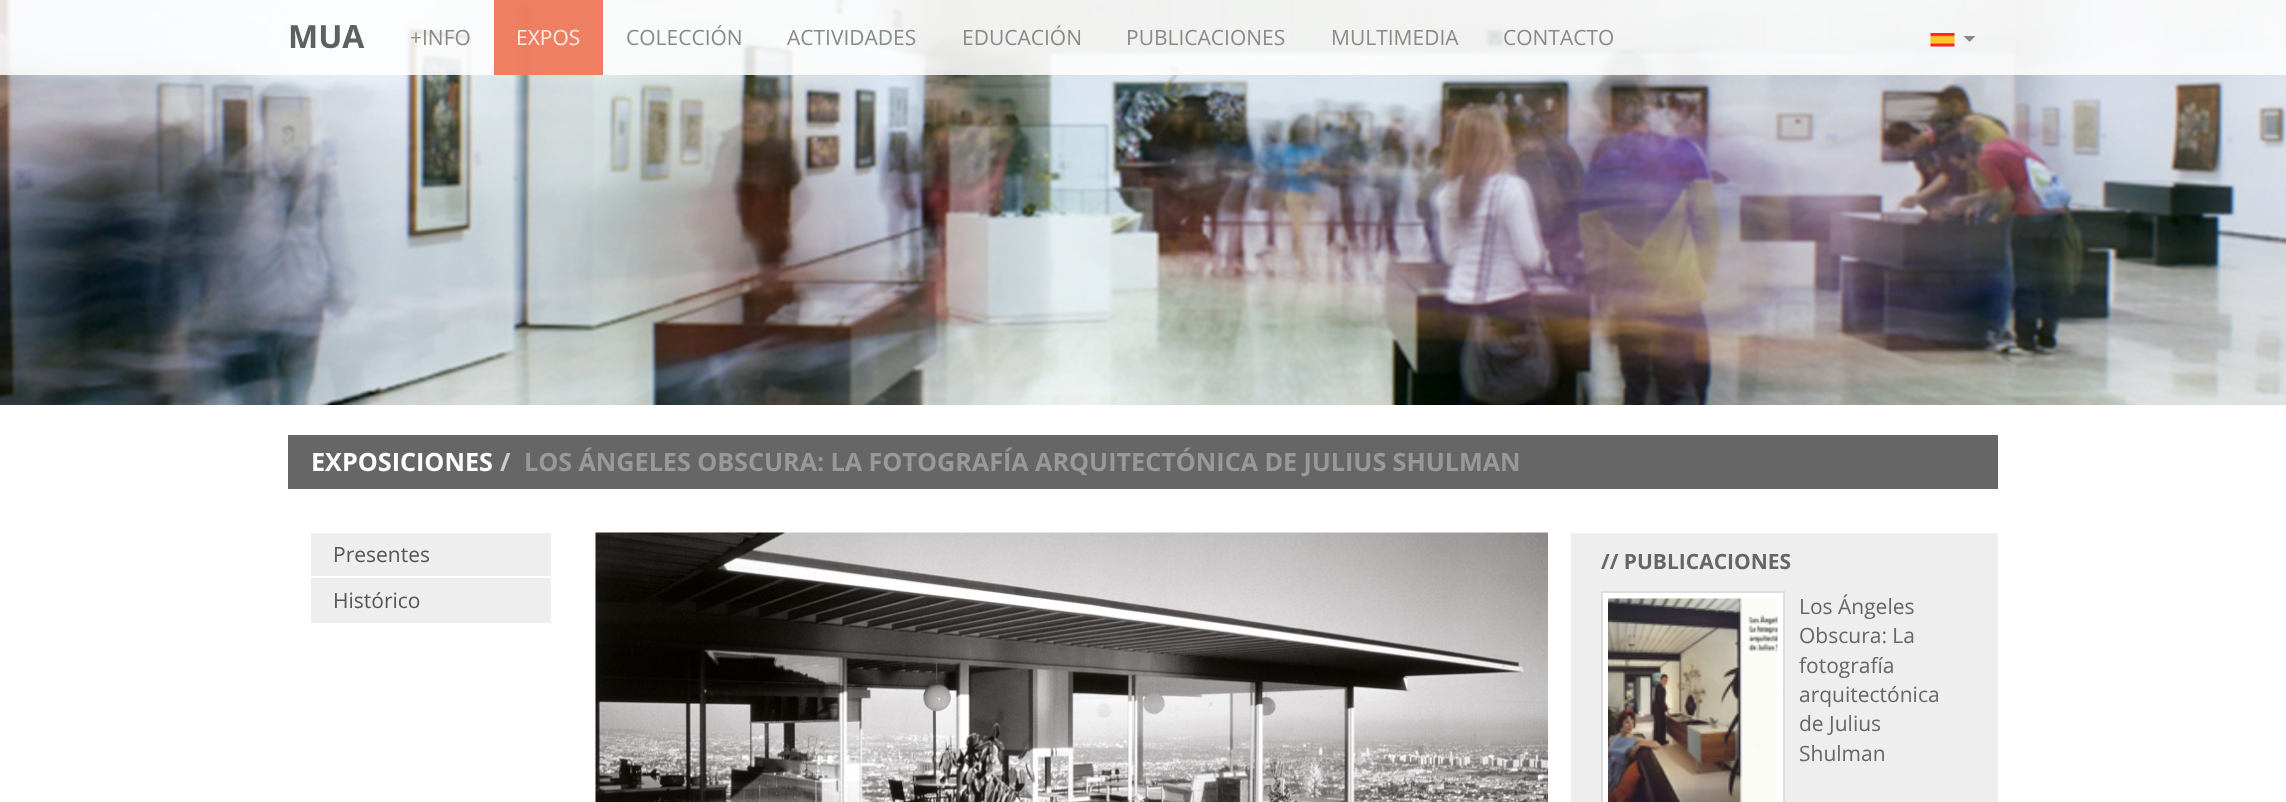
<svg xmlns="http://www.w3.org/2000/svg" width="2286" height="802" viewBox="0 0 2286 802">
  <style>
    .t1 { font: bold 32px Open Sans; fill: #5f6060; }
    .t2 { font: 21px Open Sans; fill: #8a8a8a; }
    .t3 { font: 21px Open Sans; fill: #fdece7; }
    .t4 { font: bold 25.2px Open Sans; fill: #fff; }
    .t5 { font: bold 25.2px Open Sans; fill: #ccc; }
    .t6 { font: bold 25.2px Open Sans; fill: #999; }
    .t7 { font: 21px Open Sans; fill: #555; }
    .t8 { font: bold 21px Open Sans; fill: #666; }
    .t9 { font: 21px Open Sans; fill: #666; }
  </style>
  <rect width="100%" height="100%" fill="#fff"/>
  <image x="0" y="0" width="2286" height="405" href="images/1.png"/>
  <rect x="0" y="0" width="2286" height="75" fill="#ffffffd9"/>
  <text x="288" y="48" class="t1">MUA</text>
  <text x="410" y="45" class="t2">+INFO</text>
  <rect x="494" y="0" width="109" height="75" fill="#ed6947d9"/>
  <text x="516" y="45" class="t3">EXPOS</text>
  <text x="626" y="45" class="t2">COLECCIÓN</text>
  <text x="787" y="45" class="t2">ACTIVIDADES</text>
  <text x="962" y="45" class="t2">EDUCACIÓN</text>
  <text x="1126" y="45" class="t2">PUBLICACIONES</text>
  <text x="1331" y="45" class="t2">MULTIMEDIA</text>
  <text x="1503" y="45" class="t2">CONTACTO</text>
  <image x="1930" y="33" width="25" height="14" href="images/2.png"/>
  <path d="M1963.5 36H1975.5L1969.5 42Z" fill="#8a8a8a"/>
  <rect x="288" y="435" width="1710" height="54" fill="#666"/>
  <text x="311" y="471" class="t4">EXPOSICIONES</text>
  <text x="500" y="471" class="t5">/</text>
  <text x="524" y="471" word-spacing="-0.25" class="t6">LOS ÁNGELES OBSCURA: LA FOTOGRAFÍA ARQUITECTÓNICA DE JULIUS SHULMAN</text>
  <rect x="311" y="533" width="240" height="43" fill="#eee"/>
  <text x="333" y="562" class="t7">Presentes</text>
  <rect x="311" y="578" width="240" height="45" fill="#eee"/>
  <text x="333" y="608" class="t7">Histórico</text>
  <image x="595" y="532" width="953" height="270" href="images/3.png"/>
  <rect x="1571" y="533" width="427" height="269" fill="#eee"/>
  <text x="1601" y="569" class="t8">// PUBLICACIONES</text>
  <rect x="1602" y="592" width="182" height="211" fill="#fff" stroke="#ddd" stroke-width="2"/>
  <image x="1608" y="598" width="170" height="204" href="images/4.png"/>
  <text x="1799" y="614" class="t9">Los Ángeles</text>
  <text x="1799" y="643" class="t9">Obscura: La</text>
  <text x="1799" y="673" class="t9">fotografía</text>
  <text x="1799" y="702" class="t9">arquitectónica</text>
  <text x="1799" y="731" class="t9">de Julius</text>
  <text x="1799" y="761" class="t9">Shulman</text>
</svg>
